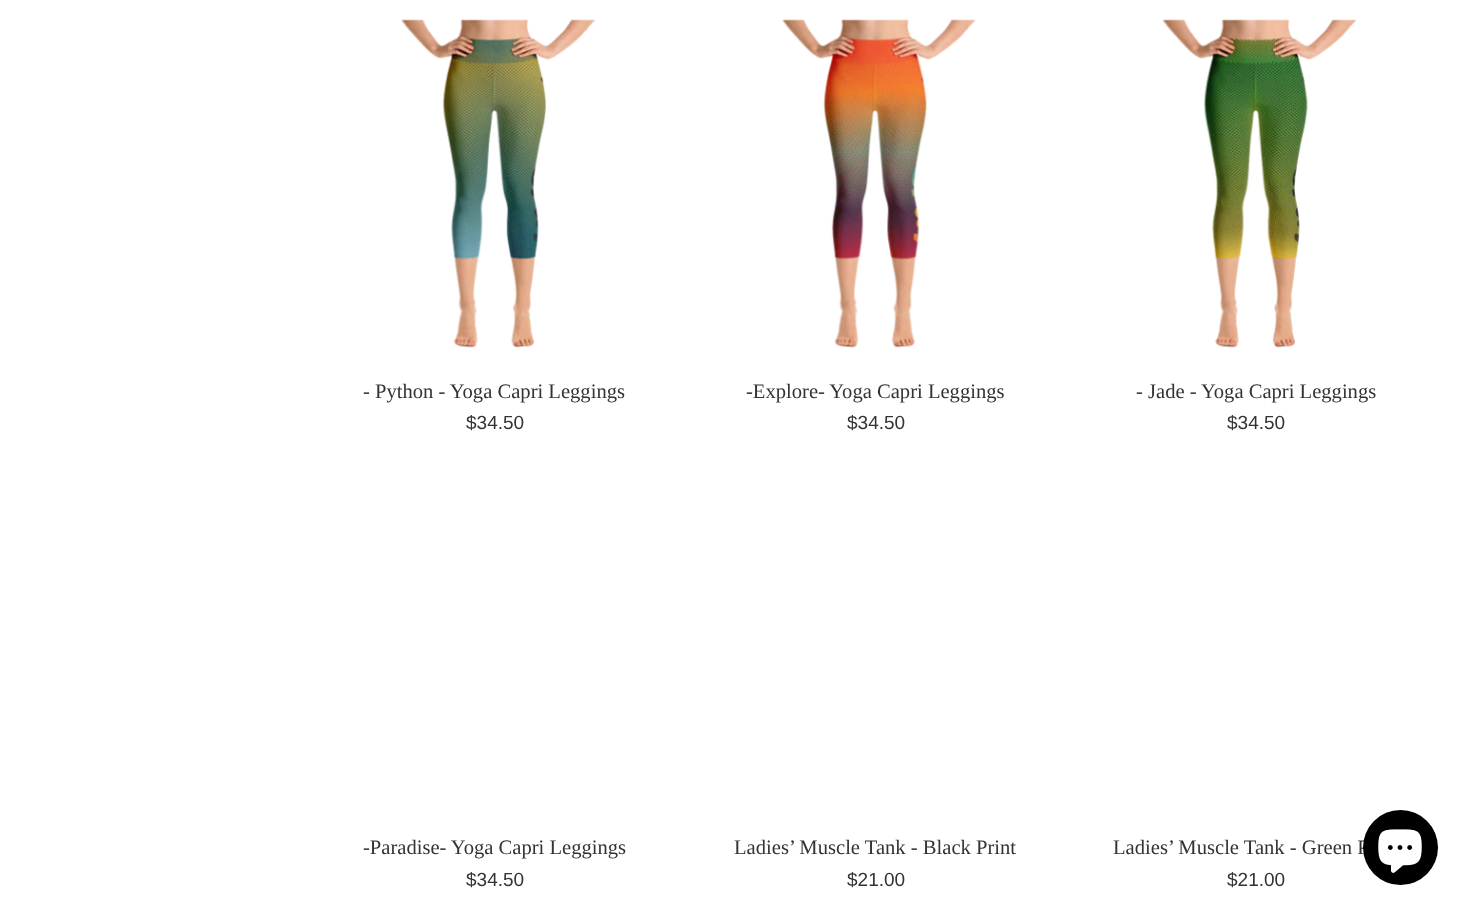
<svg xmlns="http://www.w3.org/2000/svg" width="1465" height="911" viewBox="0 0 1465 911">
  <style>
    .t1 { font: 20.6px Liberation Serif; fill: #333; }
    .t2 { font: 19px Liberation Sans; fill: #333; }
  </style>
  <rect width="100%" height="100%" fill="#fff"/>
  <image x="401" y="19" width="195" height="329" href="images/1.png"/>
  <text x="363" y="398" class="t1">- Python - Yoga Capri Leggings</text>
  <text x="466" y="429" class="t2">$34.50</text>
  <image x="782" y="19" width="194" height="329" href="images/2.png"/>
  <text x="746" y="398" class="t1">-Explore- Yoga Capri Leggings</text>
  <text x="847" y="429" class="t2">$34.50</text>
  <image x="1162" y="19" width="195" height="329" href="images/3.png"/>
  <text x="1136" y="398" class="t1">- Jade - Yoga Capri Leggings</text>
  <text x="1227" y="429" class="t2">$34.50</text>
  <text x="363" y="854" class="t1">-Paradise- Yoga Capri Leggings</text>
  <text x="466" y="886" class="t2">$34.50</text>
  <text x="734" y="854" class="t1">Ladies’ Muscle Tank - Black Print</text>
  <text x="847" y="886" class="t2">$21.00</text>
  <text x="1113" y="854" class="t1">Ladies’ Muscle Tank - Green P</text>
  <text x="1227" y="886" class="t2">$21.00</text>
  <circle cx="1400.5" cy="847.5" r="37.5" fill="#000"/>
  <image x="1378" y="829" width="44" height="44" href="images/4.png"/>
</svg>
